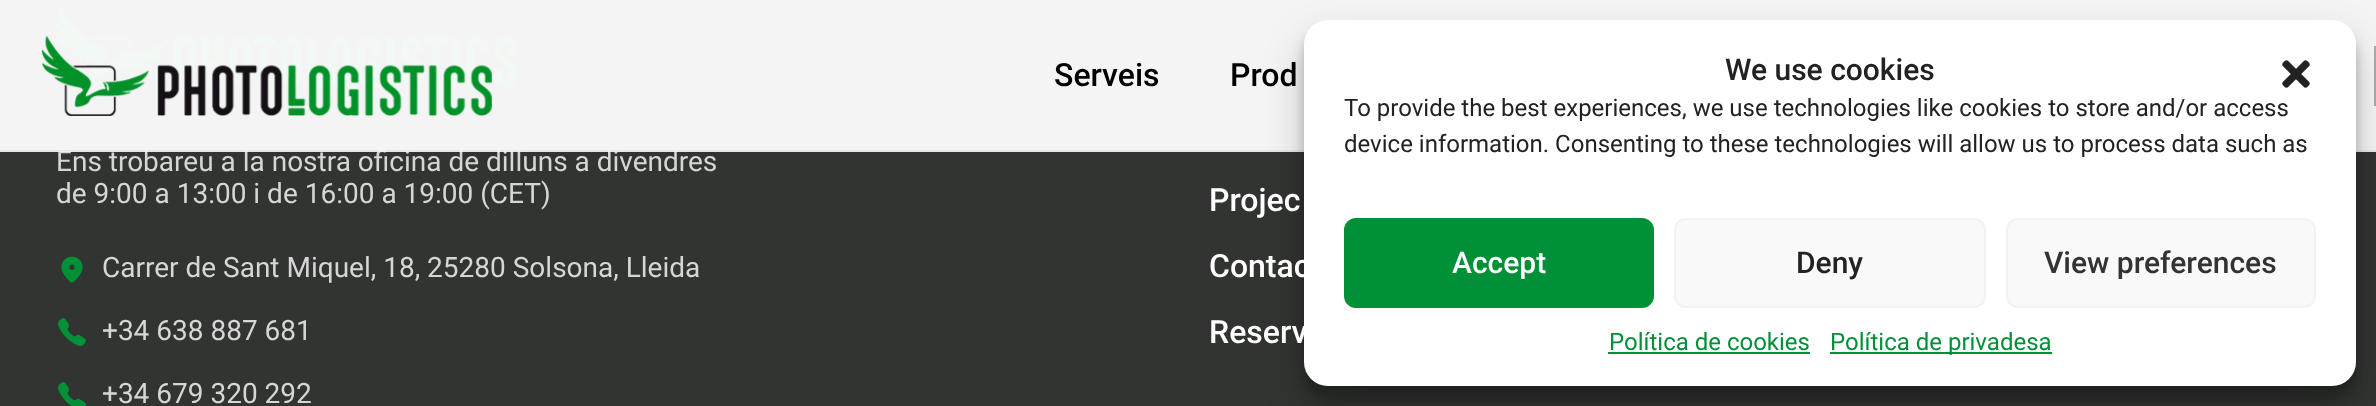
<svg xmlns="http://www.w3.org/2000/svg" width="2376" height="406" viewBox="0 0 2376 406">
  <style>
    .t1 { font: 28px Roboto; fill: #d6d6d6; }
    .t2 { font: 500 32px Roboto; fill: #000; }
    .t3 { font: 500 30px Roboto; fill: #222; }
    .t4 { font: 24px Roboto; fill: #222; }
    .t5 { font: 500 30px Roboto; fill: #fff; }
    .t6 { font: 500 30px Roboto; fill: #333; }
    .t7 { font: 24px Roboto; fill: #009037; }
    .t8 { font: 500 32px Roboto; fill: #fff; }
  </style>
  <rect width="100%" height="100%" fill="#313431"/>
  <image x="56" y="8" width="460" height="80" href="images/3.png"/>
  <text x="56" y="171" class="t1">Ens trobareu a la nostra oficina de dilluns a divendres</text>
  <rect x="0" y="0" width="2376" height="152" fill="#fffffff2"/>
  <rect x="0" y="150" width="2376" height="2" fill="#0000000d"/>
  <image x="42" y="35" width="450" height="81" href="images/1.png"/>
  <text x="1054" y="86" class="t2">Serveis</text>
  <text x="1230" y="86" class="t2">Prod</text>
  <rect x="2374" y="46" width="2" height="60" fill="#ababab"/>
  <rect x="1304" y="32" width="1052" height="366" rx="24" fill="#0000003b" filter="blur(6px)"/>
  <rect x="1304" y="40" width="1052" height="366" rx="24" fill="#00000030" filter="blur(20px)"/>
  <rect x="1304" y="20" width="1052" height="366" rx="24" fill="#fff"/>
  <text x="1725" y="80" class="t3">We use cookies</text>
  <image x="2282" y="60" width="28" height="28" href="images/2.png"/>
  <text x="1344" y="116" class="t4">To provide the best experiences, we use technologies like cookies to store and/or access</text>
  <text x="1344" y="152" class="t4">device information. Consenting to these technologies will allow us to process data such as</text>
  <rect x="1345" y="219" width="308" height="88" rx="11" fill="#009037" stroke="#009037" stroke-width="2"/>
  <text x="1452" y="273" class="t5">Accept</text>
  <rect x="1675" y="219" width="310" height="88" rx="11" fill="#f9f9f9" stroke="#f2f2f2" stroke-width="2"/>
  <text x="1796" y="273" class="t3">Deny</text>
  <rect x="2007" y="219" width="308" height="88" rx="11" fill="#f9f9f9" stroke="#f2f2f2" stroke-width="2"/>
  <text x="2044" y="273" class="t6">View preferences</text>
  <text x="1609" y="350" class="t7">Política de cookies</text>
  <rect x="1608" y="352" width="202" height="2" fill="#009037"/>
  <rect x="1830" y="352" width="222" height="2" fill="#009037"/>
  <text x="1830" y="350" class="t7">Política de privadesa</text>
  <text x="56" y="203" class="t1">de 9:00 a 13:00 i de 16:00 a 19:00 (CET)</text>
  <image x="61" y="256" width="22" height="27" href="images/4.png"/>
  <text x="102" y="277" class="t1">Carrer de Sant Miquel, 18, 25280 Solsona, Lleida</text>
  <image x="58" y="318" width="28" height="28" href="images/5.png"/>
  <text x="102" y="340" class="t1">+34 638 887 681</text>
  <image x="58" y="382" width="28" height="24" href="images/6.png"/>
  <text x="102" y="403" class="t1">+34 679 320 292</text>
  <text x="1209" y="211" class="t8">Projec</text>
  <text x="1209" y="277" class="t8">Contac</text>
  <text x="1209" y="343" class="t8">Reserv</text>
</svg>
